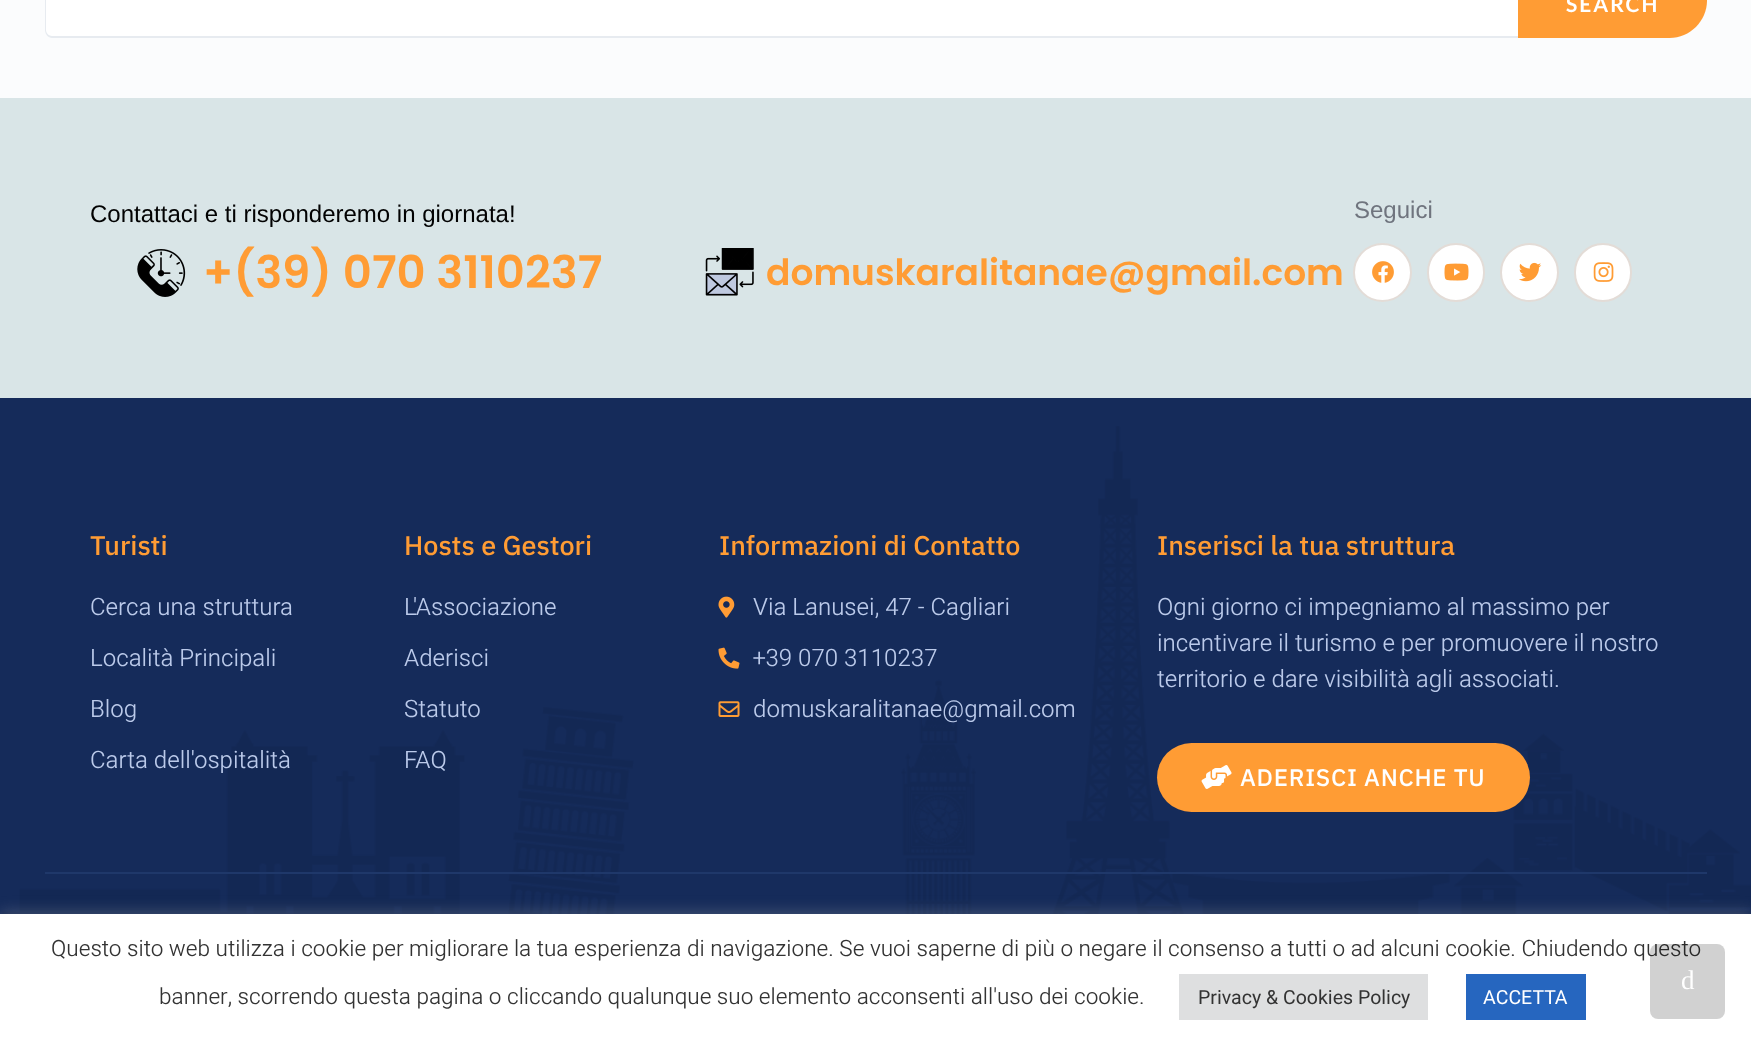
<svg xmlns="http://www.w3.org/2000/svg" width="1751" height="1045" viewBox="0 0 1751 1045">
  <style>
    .t1 { font: bold 21px Lato; letter-spacing: 2px; fill: #fff; }
    .t2 { font: 24px Liberation Sans; fill: #020202; }
    .t3 { font: 600 45px Poppins; fill: #ff9c34; }
    .t4 { font: 600 36px Poppins; fill: #ff9c34; }
    .t5 { font: 24px Liberation Sans; fill: #6f747e; }
    .t6 { font: 500 27px IBM Plex Sans; fill: #ff9c34; }
    .t7 { font: 300 24px Heebo; fill: #bbcaea; }
    .t8 { font: 500 24px IBM Plex Sans; letter-spacing: 0.75px; fill: #fff; }
    .t9 { font: 300 22.5px Heebo; fill: #333; }
    .t10 { font: 19.5px Heebo; fill: #333; }
    .t11 { font: 19.5px Heebo; fill: #fff; }
    .t12 { font: 27px Liberation Serif; fill: #fff; }
  </style>
  <rect width="100%" height="100%" fill="#fbfcfd"/>
  <path d="M53-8H1518V38H53C48.5 38 45 34.5 45 30V0C45-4.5 48.5-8 53-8Z" fill="#fff"/>
  <path d="M52-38H1518V38H52C48 38 45 34 45 30V-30C45-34 48-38 52-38ZM52-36H1518V36H52C49 36 46 33 46 30V-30C46-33 49-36 52-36Z" fill="#e7ebf0" fill-rule="evenodd"/>
  <path d="M1518-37H1669.5C1690-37 1707-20 1707 .5C1707 21 1690 38 1669.5 38H1518Z" fill="#ff9c34"/>
  <text x="1566" y="12" class="t1">SEARCH</text>
  <rect x="0" y="98" width="1751" height="300" fill="#d9e5e7"/>
  <text x="90" y="222" class="t2">Contattaci e ti risponderemo in giornata!</text>
  <image x="137" y="249" width="49" height="48" href="images/1.png"/>
  <text x="203" y="288" class="t3">+(39) 070 3110237</text>
  <image x="705" y="248" width="49" height="48" href="images/2.png"/>
  <text x="766" y="285" class="t4">domuskaralitanae@gmail.com</text>
  <text x="1354" y="218" class="t5">Seguici</text>
  <circle cx="1382.5" cy="272.5" r="28.5" fill="#fff" stroke="#e3dcd7" stroke-width="2"/>
  <image x="1372" y="261" width="22" height="22" href="images/3.png"/>
  <rect x="1428" y="244" width="56" height="57" rx="28" fill="#fff" stroke="#e3dcd7" stroke-width="2"/>
  <image x="1444" y="263" width="25" height="18" href="images/4.png"/>
  <circle cx="1529.5" cy="272.5" r="28.5" fill="#fff" stroke="#e3dcd7" stroke-width="2"/>
  <image x="1519" y="262" width="23" height="20" href="images/5.png"/>
  <rect x="1575" y="244" width="56" height="57" rx="28" fill="#fff" stroke="#e3dcd7" stroke-width="2"/>
  <image x="1593" y="262" width="21" height="20" href="images/6.png"/>
  <rect x="0" y="398" width="1751" height="516" fill="#152b5a"/>
  <image x="2" y="426" width="1749" height="488" href="images/7.png"/>
  <text x="90" y="555" class="t6">Turisti</text>
  <text x="90" y="615" class="t7">Cerca una struttura</text>
  <text x="90" y="666" class="t7">Località Principali</text>
  <text x="90" y="717" class="t7">Blog</text>
  <text x="90" y="768" class="t7">Carta dell'ospitalità</text>
  <text x="404" y="555" class="t6">Hosts e Gestori</text>
  <text x="404" y="615" class="t7">L'Associazione</text>
  <text x="404" y="666" class="t7">Aderisci</text>
  <text x="404" y="717" class="t7">Statuto</text>
  <text x="404" y="768" class="t7">FAQ</text>
  <text x="719" y="555" class="t6">Informazioni di Contatto</text>
  <image x="718" y="596" width="17" height="22" href="images/8.png"/>
  <text x="753" y="615" class="t7">Via Lanusei, 47 - Cagliari</text>
  <image x="718" y="647" width="22" height="22" href="images/9.png"/>
  <text x="753" y="666" class="t7">+39 070 3110237</text>
  <image x="718" y="701" width="22" height="16" href="images/10.png"/>
  <text x="753" y="717" class="t7">domuskaralitanae@gmail.com</text>
  <text x="1157" y="555" class="t6">Inserisci la tua struttura</text>
  <text x="1157" y="615" class="t7">Ogni giorno ci impegniamo al massimo per</text>
  <text x="1157" y="651" class="t7">incentivare il turismo e per promuovere il nostro</text>
  <text x="1157" y="687" class="t7">territorio e dare visibilità agli associati.</text>
  <rect x="1157" y="743" width="373" height="69" rx="34.5" fill="#ff9c34"/>
  <image x="1201" y="765" width="31" height="24" href="images/11.png"/>
  <text x="1240" y="786" class="t8">ADERISCI ANCHE TU</text>
  <rect x="45" y="872" width="1662" height="2" fill="#1f386a"/>
  <rect x="0" y="912" width="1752" height="132" fill="#acabab4d" filter="blur(7.5px)"/>
  <rect x="0" y="914" width="1751" height="131" fill="#fff"/>
  <text x="51" y="956" class="t9">Questo sito web utilizza i cookie per migliorare la tua esperienza di navigazione. Se vuoi saperne di più o negare il consenso a tutti o ad alcuni cookie. Chiudendo questo</text>
  <text x="159" y="1004" class="t9">banner, scorrendo questa pagina o cliccando qualunque suo elemento acconsenti all'uso dei cookie.</text>
  <rect x="1179" y="974" width="249" height="46" fill="#dedfe0"/>
  <text x="1198" y="1004" class="t10">Privacy &amp; Cookies Policy</text>
  <rect x="1466" y="974" width="120" height="46" fill="#2666bf"/>
  <text x="1483" y="1004" class="t11">ACCETTA</text>
  <rect x="1650" y="944" width="75" height="75" rx="8" fill="#0000002e"/>
  <text x="1681" y="989" class="t12">d</text>
</svg>
